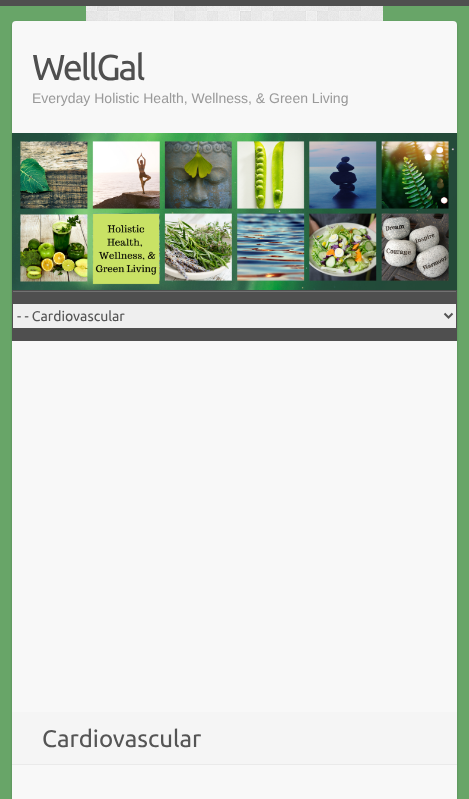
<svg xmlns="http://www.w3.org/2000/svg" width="469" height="799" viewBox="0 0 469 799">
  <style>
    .t1 { font: 36px Ubuntu; letter-spacing: -2px; fill: #4f4f4f; }
    .t2 { font: 14px Liberation Sans; fill: #999; }
    .t3 { font: 14px Ubuntu; fill: #555; }
    .t4 { font: 24px Ubuntu; fill: #555; }
  </style>
  <rect width="100%" height="100%" fill="#68a568"/>
  <image x="86" y="6" width="297" height="15" href="images/1.png"/>
  <rect x="0" y="0" width="469" height="6" fill="#4f4f4f"/>
  <rect x="12" y="22" width="445" height="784" rx="4" fill="#00000033" filter="blur(1px)"/>
  <rect x="12" y="21" width="445" height="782" rx="4" fill="#f8f8f8"/>
  <text x="32" y="80" class="t1">WellGal</text>
  <text x="32" y="103" class="t2">Everyday Holistic Health, Wellness, &amp; Green Living</text>
  <image x="12" y="133" width="445" height="157" href="images/2.png"/>
  <rect x="12" y="290" width="445" height="51" fill="#4f4f4f"/>
  <rect x="13" y="291" width="443" height="1" fill="#727272"/>
  <rect x="13" y="304" width="443" height="24" fill="#efefef"/>
  <path d="M444.5 313.5L448.5 317.5L452.5 313.5" fill="none" stroke="#555" stroke-width="2"/>
  <text x="17" y="321" class="t3">- - Cardiovascular</text>
  <rect x="12" y="712" width="445" height="52" fill="#f5f5f5"/>
  <rect x="12" y="764" width="445" height="1" fill="#eaeaea"/>
  <text x="42" y="747" class="t4">Cardiovascular</text>
</svg>
